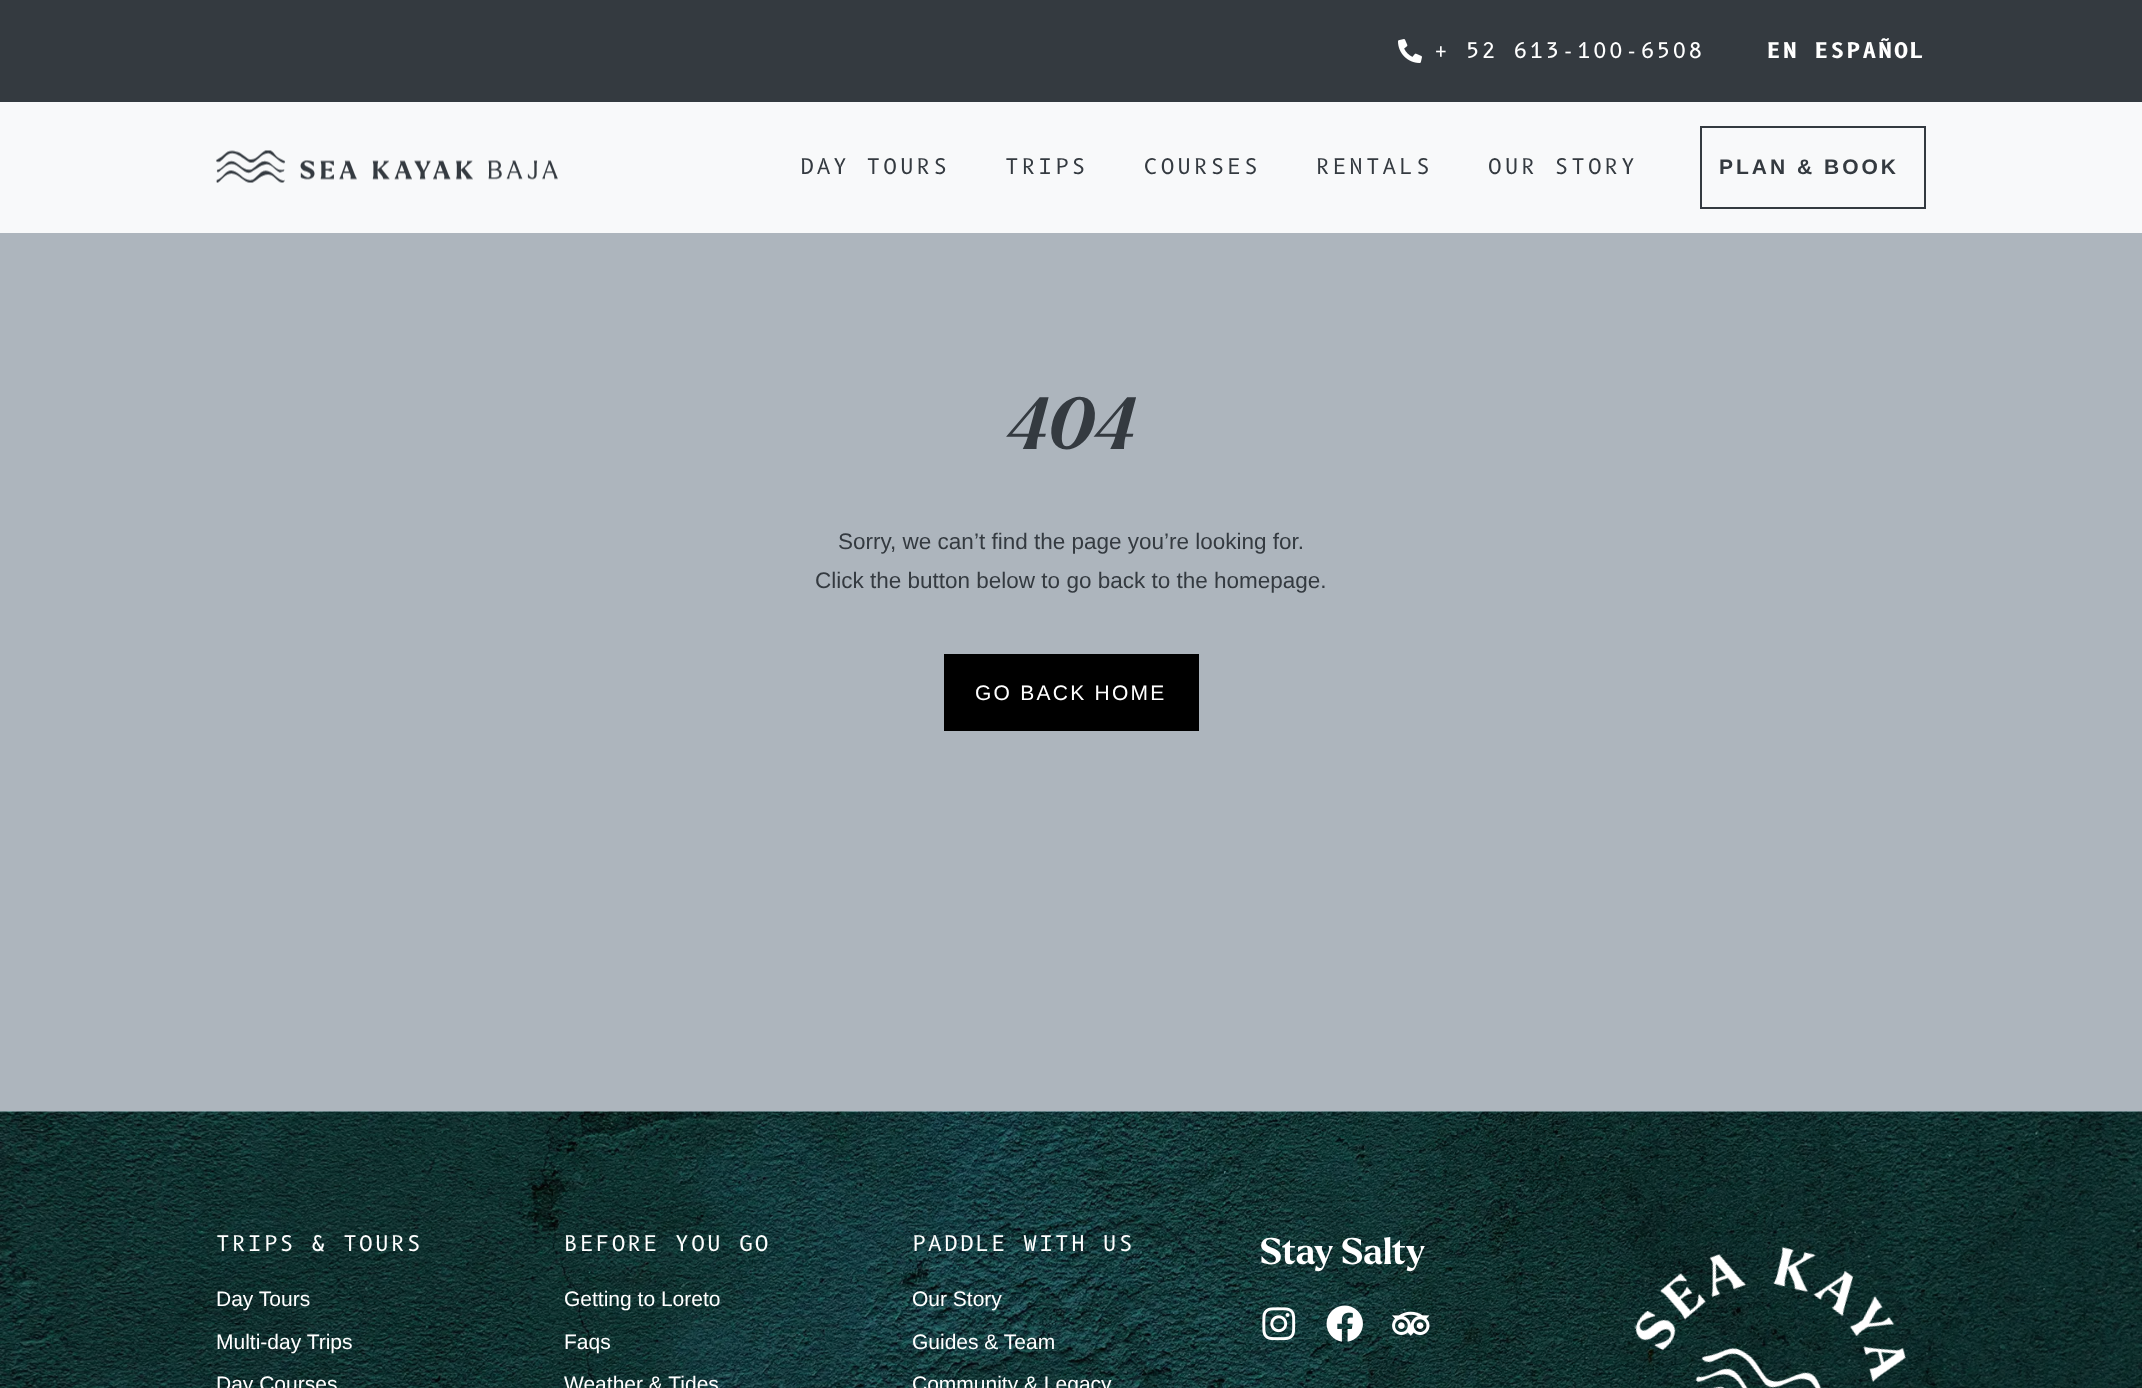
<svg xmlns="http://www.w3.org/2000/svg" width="2142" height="1388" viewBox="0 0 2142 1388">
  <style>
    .t1 { font: 21px 'B612 Mono'; letter-spacing: 2.25px; fill: #fff; }
    .t2 { font: bold 21px 'B612 Mono'; letter-spacing: 2.25px; fill: #fff; }
    .t3 { font: 21px 'B612 Mono'; letter-spacing: 3px; fill: #343a40; }
    .t4 { font: bold 21px Liberation Sans; letter-spacing: 3px; fill: #343a40; }
    .t5 { font: italic bold 72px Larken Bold; fill: #343a40; }
    .t6 { font: 22.5px Liberation Sans; fill: #343a40; }
    .t7 { font: 21px Liberation Sans; letter-spacing: 2.25px; fill: #fff; }
    .t8 { font: 21px Liberation Sans; fill: #fff; }
    .t9 { font: bold 36px Larken Bold; fill: #fff; }
  </style>
  <rect width="100%" height="100%" fill="#adb5bd"/>
  <rect x="0" y="102" width="2142" height="131" fill="#f8f9fa"/>
  <rect x="0" y="0" width="2142" height="102" fill="#343a40"/>
  <image x="1398" y="39" width="24" height="24" href="images/1.png"/>
  <text x="1434" y="58" class="t1">+ 52 613-100-6508</text>
  <text x="1767" y="58" class="t2">EN ESPAÑOL</text>
  <image x="216" y="150" width="342" height="33" href="images/2.png"/>
  <text x="800" y="174" class="t3">DAY TOURS</text>
  <text x="1005" y="174" class="t3">TRIPS</text>
  <text x="1144" y="174" class="t3">COURSES</text>
  <text x="1316" y="174" class="t3">RENTALS</text>
  <text x="1488" y="174" class="t3">OUR STORY</text>
  <rect x="1701" y="127" width="224" height="81" fill="none" stroke="#343a40" stroke-width="2"/>
  <text x="1719" y="174" class="t4">PLAN &amp; BOOK</text>
  <text x="1007" y="449" class="t5">404</text>
  <text x="838" y="549" class="t6">Sorry, we can’t find the page you’re looking for.</text>
  <text x="815" y="588" class="t6">Click the button below to go back to the homepage.</text>
  <rect x="944" y="654" width="255" height="77" fill="#000"/>
  <text x="975" y="700" class="t7">GO BACK HOME</text>
  <image x="0" y="1111" width="2142" height="277" href="images/3.png"/>
  <text x="216" y="1251" class="t1">TRIPS &amp; TOURS</text>
  <text x="216" y="1306" class="t8">Day Tours</text>
  <text x="216" y="1349" class="t8">Multi-day Trips</text>
  <text x="216" y="1391" class="t8">Day Courses</text>
  <text x="564" y="1251" class="t1">BEFORE YOU GO</text>
  <text x="564" y="1306" class="t8">Getting to Loreto</text>
  <text x="564" y="1349" class="t8">Faqs</text>
  <text x="564" y="1391" class="t8">Weather &amp; Tides</text>
  <text x="912" y="1251" class="t1">PADDLE WITH US</text>
  <text x="912" y="1306" class="t8">Our Story</text>
  <text x="912" y="1349" class="t8">Guides &amp; Team</text>
  <text x="912" y="1391" class="t8">Community &amp; Legacy</text>
  <text x="1260" y="1264" class="t9">Stay Salty</text>
  <image x="1262" y="1307" width="34" height="34" href="images/4.png"/>
  <image x="1326" y="1305" width="37" height="37" href="images/5.png"/>
  <image x="1392" y="1311" width="38" height="25" href="images/6.png"/>
  <image x="1635" y="1247" width="271" height="141" href="images/7.png"/>
</svg>
